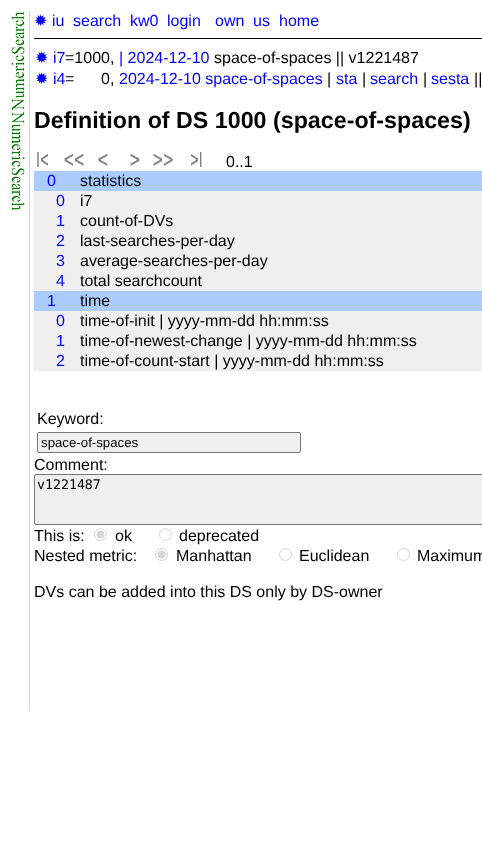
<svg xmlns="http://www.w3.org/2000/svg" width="482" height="867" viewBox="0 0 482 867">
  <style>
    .t1 { font: 16px DejaVu Sans; fill: #00f; }
    .t2 { font: 16px Liberation Sans; fill: #00f; }
    .t3 { font: 16px Liberation Sans; fill: #000; }
    .t4 { font: bold 23.25px Liberation Sans; fill: #000; }
    .t5 { font: 13.25px Liberation Sans; fill: #000; }
    .t6 { font: 13.25px DejaVu Sans Mono; fill: #000; }
  </style>
  <rect width="100%" height="100%" fill="#fff"/>
  <image x="11" y="11" width="14" height="100" href="images/1.png"/>
  <image x="11" y="111" width="14" height="100" href="images/2.png"/>
  <rect x="29" y="11" width="1" height="700" fill="#d6d6ce"/>
  <text x="34" y="26" class="t1">✹</text>
  <text x="52" y="26" class="t2">iu</text>
  <text x="73" y="26" class="t2">search</text>
  <text x="130" y="26" class="t2">kw0</text>
  <text x="167" y="26" class="t2">login</text>
  <text x="215" y="26" class="t2">own</text>
  <text x="253" y="26" class="t2">us</text>
  <text x="279" y="26" class="t2">home</text>
  <rect x="34" y="38" width="448" height="1" fill="#000"/>
  <text x="35" y="63" class="t1">✹</text>
  <text x="53" y="63" class="t2">i7</text>
  <text x="65" y="63" class="t3">=1000,</text>
  <text x="119" y="63" class="t2">| 2024-12-10</text>
  <text x="214" y="63" class="t3">space-of-spaces || v1221487</text>
  <text x="35" y="84" class="t1">✹</text>
  <text x="53" y="84" class="t2">i4</text>
  <text x="65" y="84" class="t3" xml:space="preserve">=      0,</text>
  <text x="119" y="84" class="t2">2024-12-10 space-of-spaces</text>
  <text x="327" y="84" class="t3">|</text>
  <text x="336" y="84" class="t2">sta</text>
  <text x="362" y="84" class="t3">|</text>
  <text x="370" y="84" class="t2">search</text>
  <text x="423" y="84" class="t3">|</text>
  <text x="431" y="84" class="t2">sesta</text>
  <text x="474" y="84" class="t3">||</text>
  <text x="34" y="128" class="t4">Definition of DS 1000 (space-of-spaces)</text>
  <image x="37" y="152" width="11" height="15" href="images/3.png"/>
  <image x="64" y="153" width="20" height="13" href="images/4.png"/>
  <image x="98" y="153" width="10" height="13" href="images/5.png"/>
  <image x="130" y="153" width="10" height="13" href="images/6.png"/>
  <image x="153" y="153" width="20" height="13" href="images/7.png"/>
  <image x="191" y="152" width="11" height="15" href="images/8.png"/>
  <text x="226" y="167" class="t3">0..1</text>
  <rect x="34" y="171" width="448" height="20" fill="#acf"/>
  <text x="47" y="186" class="t2">0</text>
  <text x="80" y="186" class="t3">statistics</text>
  <rect x="34" y="191" width="448" height="100" fill="#efefef"/>
  <text x="56" y="206" class="t2">0</text>
  <text x="80" y="206" class="t3">i7</text>
  <text x="56" y="226" class="t2">1</text>
  <text x="80" y="226" class="t3">count-of-DVs</text>
  <text x="56" y="246" class="t2">2</text>
  <text x="80" y="246" class="t3">last-searches-per-day</text>
  <text x="56" y="266" class="t2">3</text>
  <text x="80" y="266" class="t3">average-searches-per-day</text>
  <text x="56" y="286" class="t2">4</text>
  <text x="80" y="286" class="t3">total searchcount</text>
  <rect x="34" y="291" width="448" height="20" fill="#acf"/>
  <text x="47" y="306" class="t2">1</text>
  <text x="80" y="306" class="t3">time</text>
  <rect x="34" y="311" width="448" height="60" fill="#efefef"/>
  <text x="56" y="326" class="t2">0</text>
  <text x="80" y="326" class="t3">time-of-init | yyyy-mm-dd hh:mm:ss</text>
  <text x="56" y="346" class="t2">1</text>
  <text x="80" y="346" class="t3">time-of-newest-change | yyyy-mm-dd hh:mm:ss</text>
  <text x="56" y="366" class="t2">2</text>
  <text x="80" y="366" class="t3">time-of-count-start | yyyy-mm-dd hh:mm:ss</text>
  <text x="37" y="424" class="t3">Keyword:</text>
  <rect x="37.5" y="432.5" width="263" height="20" rx="1.5" fill="#efefef" stroke="#767676"/>
  <text x="41" y="447" class="t5">space-of-spaces</text>
  <text x="34" y="470" class="t3">Comment:</text>
  <rect x="34.5" y="474.5" width="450" height="50" rx="1.5" fill="#efefef" stroke="#767676"/>
  <text x="37" y="489" class="t6">v1221487</text>
  <text x="34" y="541" class="t3">This is:</text>
  <circle cx="100.5" cy="534.5" r="6" fill="none" stroke="#d6d6d6"/>
  <circle cx="100.5" cy="534.5" r="4" fill="#d6d6d6"/>
  <text x="115" y="541" class="t3">ok</text>
  <circle cx="165.5" cy="534.5" r="6" fill="none" stroke="#d6d6d6"/>
  <text x="179" y="541" class="t3">deprecated</text>
  <text x="34" y="561" class="t3">Nested metric:</text>
  <circle cx="161.5" cy="554.5" r="6" fill="none" stroke="#d6d6d6"/>
  <circle cx="161.5" cy="554.5" r="4" fill="#d6d6d6"/>
  <text x="176" y="561" class="t3">Manhattan</text>
  <circle cx="285.5" cy="554.5" r="6" fill="none" stroke="#d6d6d6"/>
  <text x="299" y="561" class="t3">Euclidean</text>
  <circle cx="403.5" cy="554.5" r="6" fill="none" stroke="#d6d6d6"/>
  <text x="417" y="561" class="t3">Maximum</text>
  <text x="34" y="597" class="t3">DVs can be added into this DS only by DS-owner</text>
</svg>
